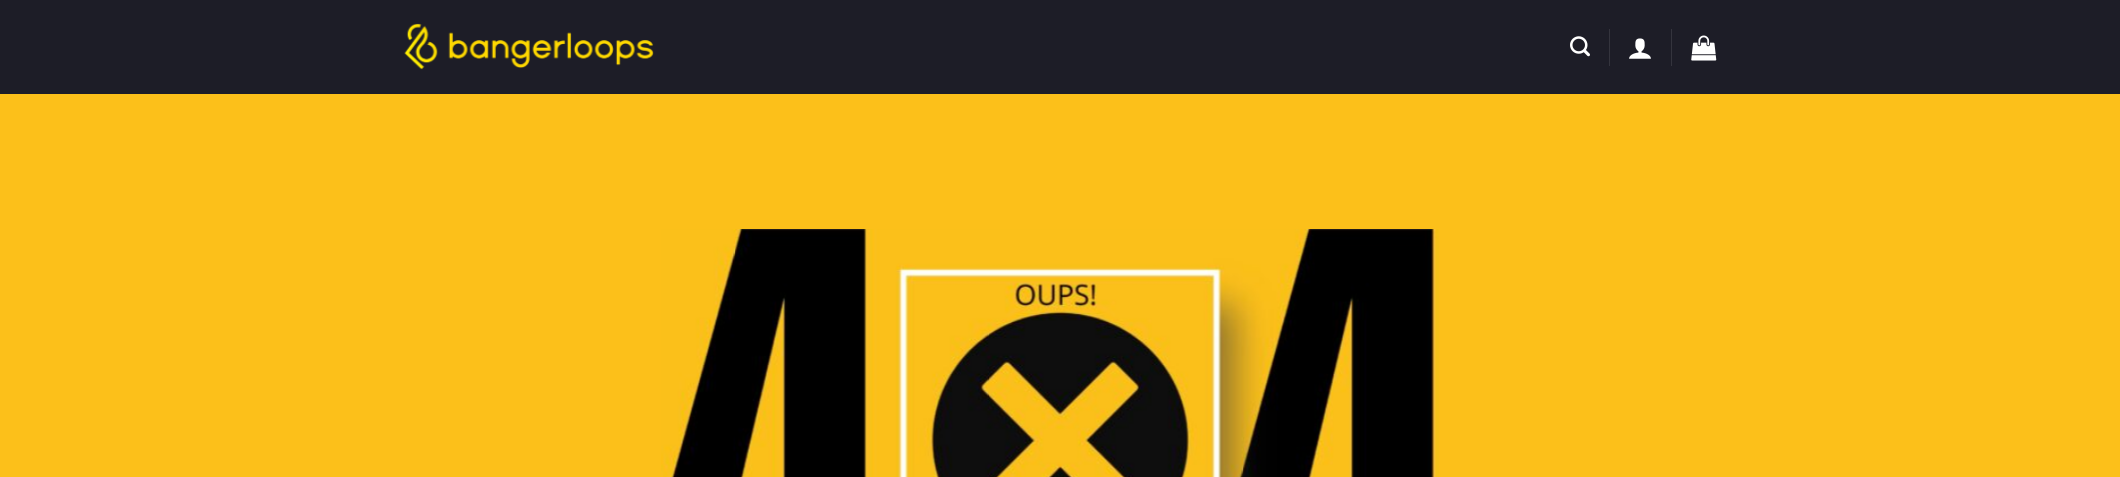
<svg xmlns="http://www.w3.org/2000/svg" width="2120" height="477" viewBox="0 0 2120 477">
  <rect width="100%" height="100%" fill="#1d1d27"/>
  <image x="404" y="23" width="250" height="47" href="images/1.png"/>
  <image x="1570" y="36" width="20" height="21" href="images/2.png"/>
  <rect x="1609" y="29" width="1" height="37" fill="#34343d"/>
  <image x="1629" y="38" width="22" height="21" href="images/3.png"/>
  <rect x="1671" y="29" width="1" height="37" fill="#34343d"/>
  <image x="1691" y="35" width="26" height="26" href="images/4.png"/>
  <rect x="0" y="94" width="2120" height="383" fill="#fcc01a"/>
  <image x="661" y="229" width="778" height="248" href="images/5.png"/>
</svg>
